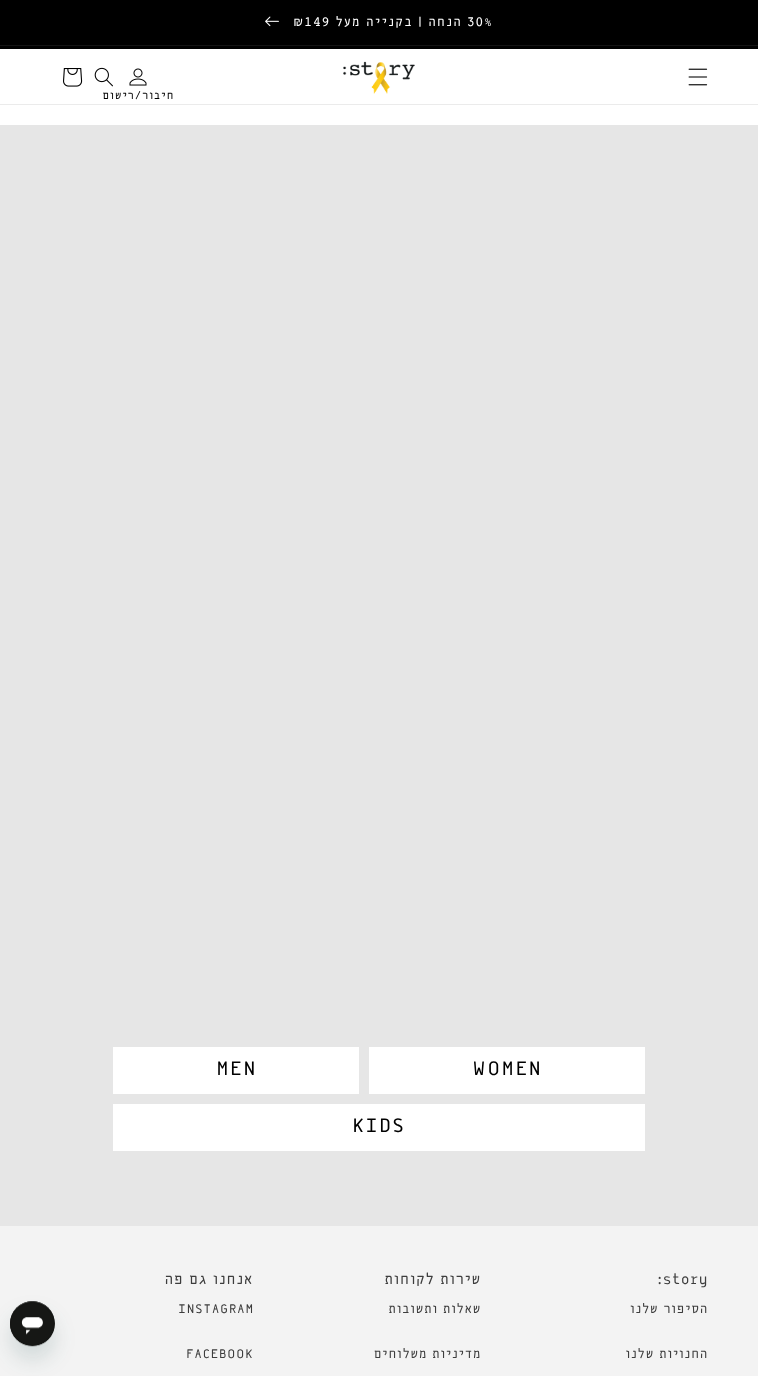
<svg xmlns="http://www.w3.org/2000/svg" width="758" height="1376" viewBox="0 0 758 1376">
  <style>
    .t1 { font: 14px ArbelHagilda; letter-spacing: 1px; fill: #fff; }
    .t2 { font: 14px ArbelHagilda; letter-spacing: 1px; direction: rtl; fill: #fff; }
    .t3 { font: 12px ArbelHagilda; letter-spacing: 0.6px; direction: rtl; fill: #000; }
    .t4 { font: 22px ArbelHagilda; letter-spacing: 1px; fill: #000; }
    .t5 { font: 16px ArbelHagilda; letter-spacing: 0.5px; fill: #3d3d3d; }
    .t6 { font: 14px ArbelHagilda; letter-spacing: 0.5px; direction: rtl; fill: #3d3d3d; }
    .t7 { font: 16px ArbelHagilda; letter-spacing: 0.5px; direction: rtl; fill: #3d3d3d; }
    .t8 { font: 14px ArbelHagilda; letter-spacing: 0.5px; fill: #3d3d3d; }
  </style>
  <rect width="100%" height="100%" fill="#fff"/>
  <rect x="0" y="0" width="758" height="49" fill="#000"/>
  <rect x="0" y="45" width="758" height="1" fill="#141414"/>
  <text x="467" y="26" class="t1">30%</text>
  <text x="462" y="26" class="t2">הנחה | בקנייה מעל</text>
  <text x="293" y="26" class="t1">₪149</text>
  <image x="265" y="16" width="14" height="11" href="images/1.png"/>
  <rect x="0" y="104" width="758" height="1" fill="#ebebeb"/>
  <image x="688" y="68" width="20" height="18" href="images/2.png"/>
  <image x="343" y="61" width="72" height="33" href="images/3.png"/>
  <image x="94" y="67" width="19" height="20" href="images/4.png"/>
  <image x="63" y="68" width="20" height="19" href="images/5.png"/>
  <image x="129" y="68" width="18" height="18" href="images/6.png"/>
  <text x="174" y="99" class="t3">חיבור/רישום</text>
  <rect x="0" y="125" width="758" height="1101" fill="#e6e6e6"/>
  <rect x="369" y="1047" width="276" height="47" fill="#fff"/>
  <text x="472" y="1075" class="t4">WOMEN</text>
  <rect x="113" y="1047" width="246" height="47" fill="#fff"/>
  <text x="216" y="1075" class="t4">MEN</text>
  <rect x="113" y="1104" width="532" height="47" fill="#fff"/>
  <text x="352" y="1132" class="t4">KIDS</text>
  <rect x="0" y="1226" width="758" height="150" fill="#f3f3f3"/>
  <text x="657" y="1284" class="t5">:story</text>
  <text x="708" y="1313" class="t6">הסיפור שלנו</text>
  <text x="708" y="1358" class="t6">החנויות שלנו</text>
  <text x="481" y="1284" class="t7">שירות לקוחות</text>
  <text x="481" y="1313" class="t6">שאלות ותשובות</text>
  <text x="481" y="1358" class="t6">מדיניות משלוחים</text>
  <text x="253" y="1284" class="t7">אנחנו גם פה</text>
  <text x="178" y="1313" class="t8">INSTAGRAM</text>
  <text x="186" y="1358" class="t8">FACEBOOK</text>
  <rect x="10" y="1315" width="45" height="45" rx="22.5" fill="#17494d26" filter="blur(10.5px)"/>
  <image x="10" y="1301" width="45" height="46" href="images/7.png"/>
</svg>
